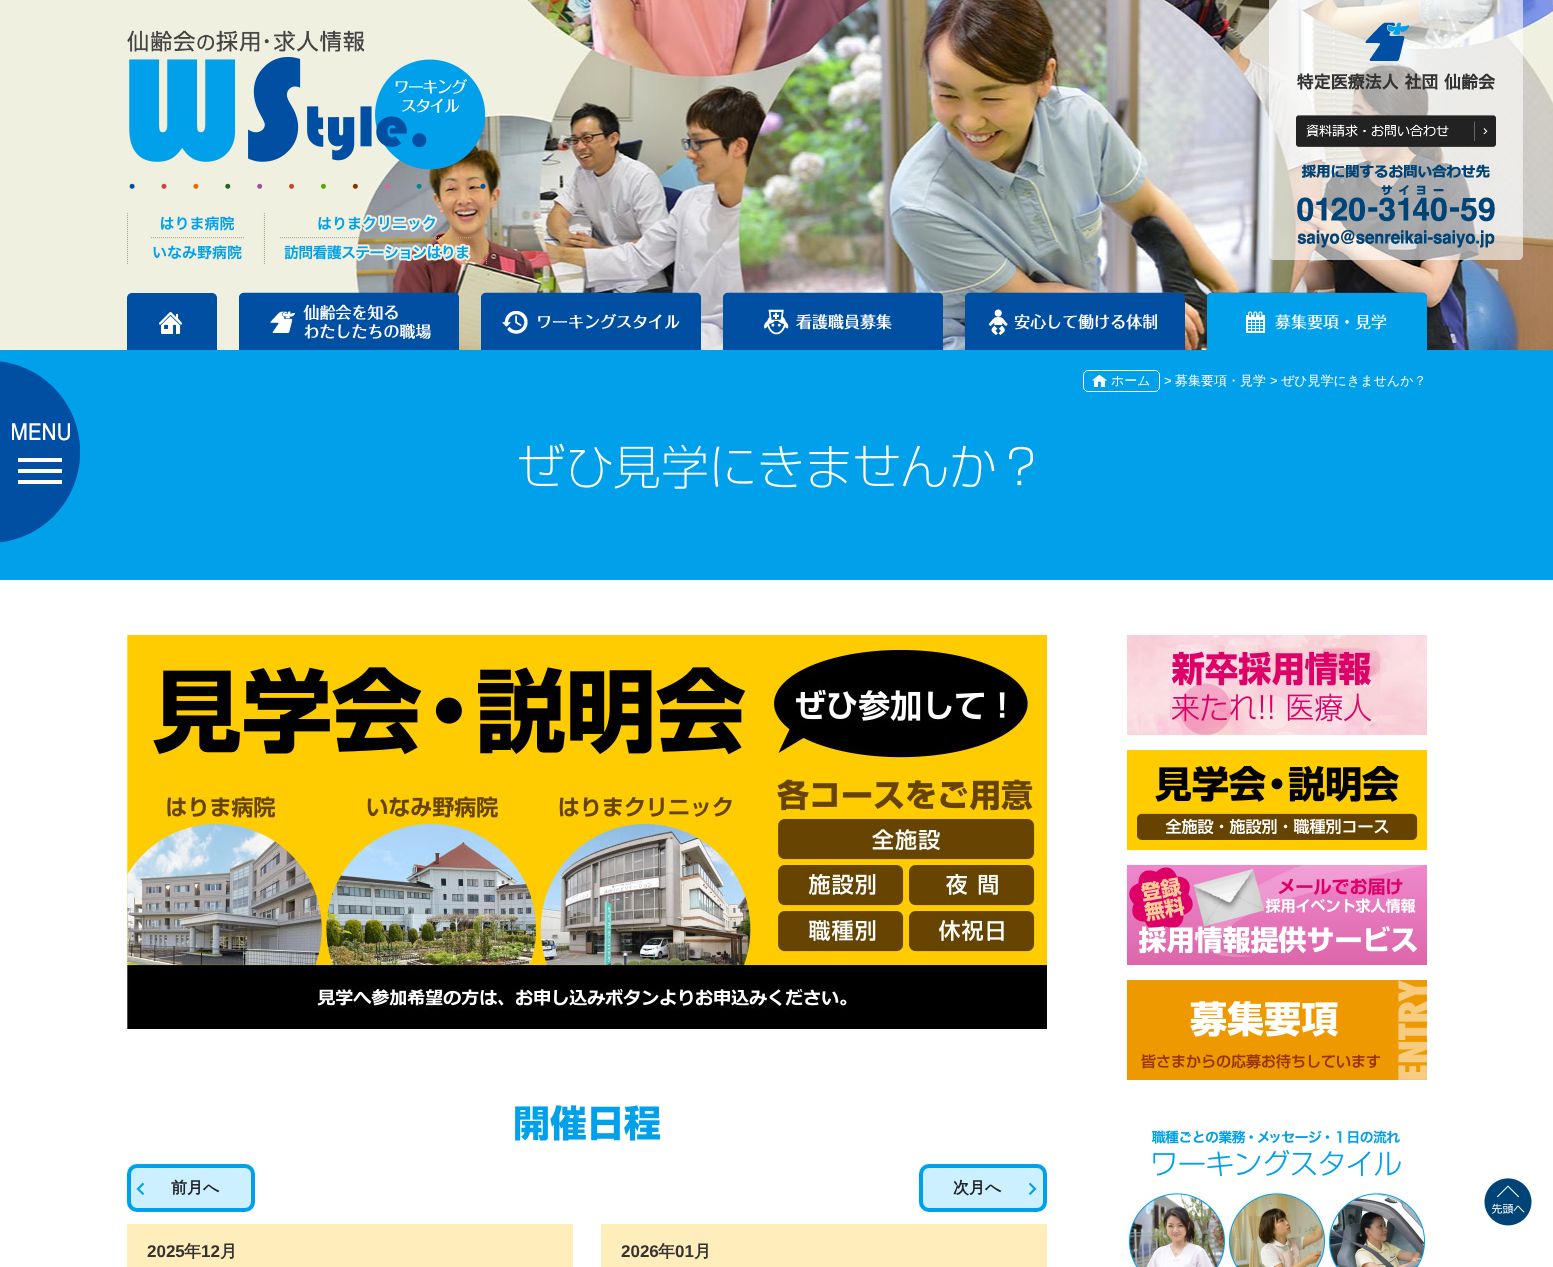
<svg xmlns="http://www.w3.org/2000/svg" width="1553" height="1267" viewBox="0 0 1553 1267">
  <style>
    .t1 { font: 500 13px WenQuanYi Zen Hei; fill: #fff; }
    .t2 { font: 13px Liberation Sans; fill: #fff; }
    .t3 { font: bold 16px WenQuanYi Zen Hei; fill: #222; }
    .t4 { font: bold 17px Liberation Sans; fill: #333; }
    .t5 { font: bold 17px WenQuanYi Zen Hei; fill: #333; }
  </style>
  <rect width="100%" height="100%" fill="#f0f0e0"/>
  <image x="350" y="0" width="1203" height="350" href="images/1.png"/>
  <path d="M1269 0H1523V255C1523 258 1521 260 1518 260H1274C1271 260 1269 258 1269 255Z" fill="#ffffff99"/>
  <image x="1297" y="22" width="198" height="68" href="images/2.png"/>
  <image x="1296" y="115" width="200" height="32" href="images/3.png"/>
  <image x="1297" y="164" width="198" height="84" href="images/4.png"/>
  <image x="127" y="30" width="238" height="22" href="images/5.png"/>
  <image x="127" y="57" width="360" height="208" href="images/6.png"/>
  <image x="127" y="293" width="90" height="57" href="images/7.png"/>
  <image x="239" y="292" width="220" height="58" href="images/8.png"/>
  <image x="481" y="292" width="220" height="58" href="images/9.png"/>
  <image x="723" y="292" width="220" height="58" href="images/10.png"/>
  <image x="965" y="292" width="220" height="58" href="images/11.png"/>
  <image x="1207" y="292" width="220" height="58" href="images/12.png"/>
  <rect x="0" y="350" width="1553" height="230" fill="#01a0ea"/>
  <image x="0" y="361" width="80" height="182" href="images/13.png"/>
  <rect x="18" y="458" width="44" height="4" fill="#fff"/>
  <rect x="18" y="469" width="44" height="4" fill="#fff"/>
  <rect x="18" y="480" width="44" height="4" fill="#fff"/>
  <rect x="0" y="580" width="1553" height="687" fill="#fff"/>
  <image x="1092" y="374" width="15" height="13" href="images/14.png"/>
  <rect x="1083.5" y="370.5" width="76" height="21" rx="4.5" fill="none" stroke="#fff"/>
  <text x="1111" y="385" class="t1">ホーム</text>
  <text x="1164" y="385" class="t2">&gt;</text>
  <text x="1175" y="385" class="t1">募集要項・見学</text>
  <text x="1270" y="385" class="t2">&gt;</text>
  <text x="1281" y="385" class="t1">ぜひ見学にきませんか？</text>
  <image x="519" y="443" width="514" height="46" href="images/15.png"/>
  <image x="127" y="635" width="920" height="394" href="images/16.png"/>
  <image x="515" y="1105" width="146" height="36" href="images/17.png"/>
  <rect x="127" y="1164" width="128" height="48" rx="10" fill="#ccf0ff"/>
  <image x="136" y="1182" width="8" height="13" href="images/18.png"/>
  <rect x="129" y="1166" width="124" height="44" rx="8" fill="none" stroke="#01a0ea" stroke-width="4"/>
  <text x="171" y="1193" class="t3">前月へ</text>
  <rect x="919" y="1164" width="128" height="48" rx="10" fill="#ccf0ff"/>
  <image x="1029" y="1182" width="8" height="13" href="images/19.png"/>
  <rect x="921" y="1166" width="124" height="44" rx="8" fill="none" stroke="#01a0ea" stroke-width="4"/>
  <text x="953" y="1193" class="t3">次月へ</text>
  <rect x="127" y="1224" width="446" height="43" fill="#feb"/>
  <text x="147" y="1257" class="t4">2025</text>
  <text x="184" y="1257" class="t5">年</text>
  <text x="201" y="1257" class="t4">12</text>
  <text x="220" y="1257" class="t5">月</text>
  <rect x="601" y="1224" width="446" height="43" fill="#feb"/>
  <text x="621" y="1257" class="t4">2026</text>
  <text x="658" y="1257" class="t5">年</text>
  <text x="675" y="1257" class="t4">01</text>
  <text x="694" y="1257" class="t5">月</text>
  <image x="1127" y="635" width="300" height="100" href="images/20.png"/>
  <image x="1127" y="750" width="300" height="100" href="images/21.png"/>
  <image x="1127" y="865" width="300" height="100" href="images/22.png"/>
  <image x="1127" y="980" width="300" height="100" href="images/23.png"/>
  <image x="1152" y="1130" width="249" height="47" href="images/24.png"/>
  <image x="1127" y="1193" width="100" height="74" href="images/25.png"/>
  <image x="1227" y="1192" width="100" height="75" href="images/26.png"/>
  <image x="1327" y="1192" width="100" height="75" href="images/27.png"/>
  <image x="1484" y="1178" width="48" height="48" href="images/28.png"/>
</svg>
